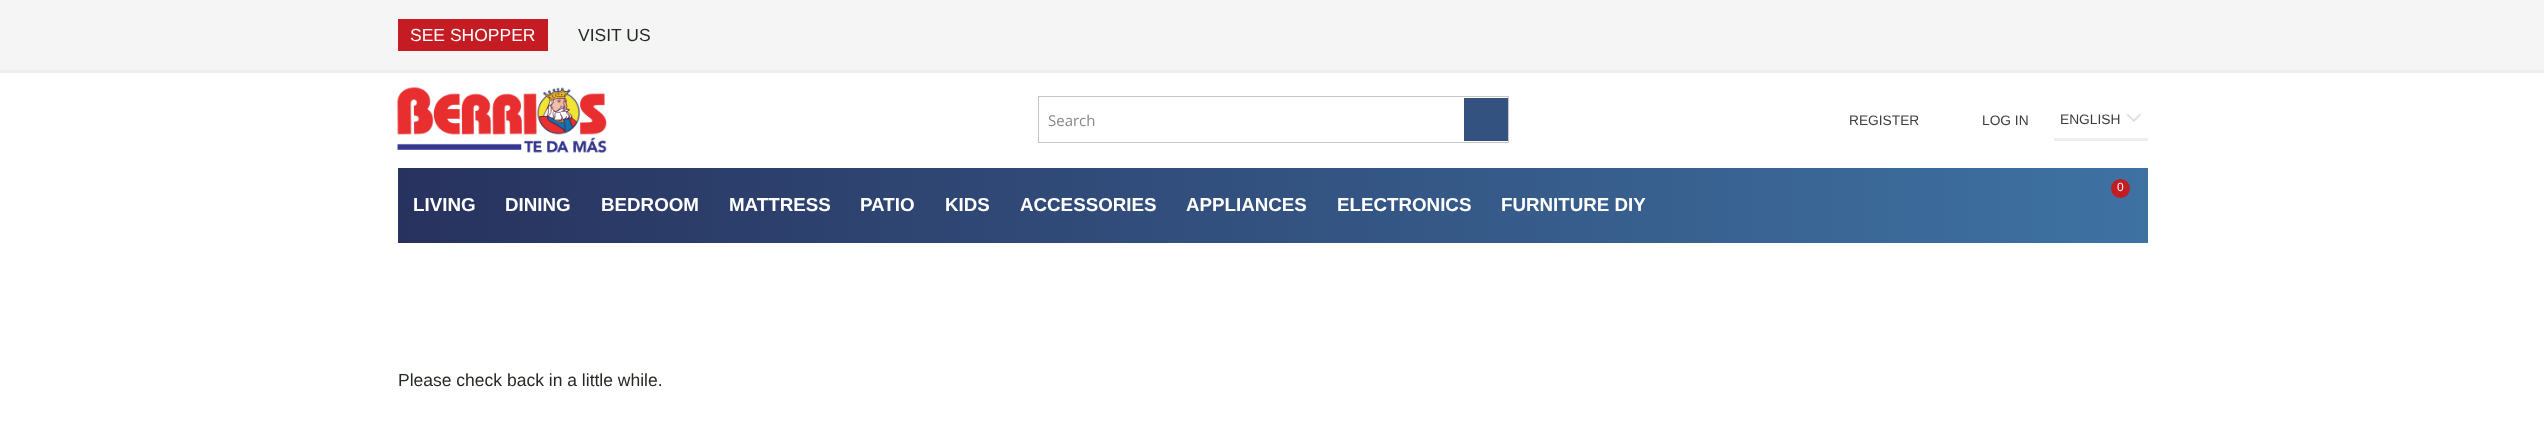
<svg xmlns="http://www.w3.org/2000/svg" width="2544" height="437" viewBox="0 0 2544 437">
  <style>
    .t1 { font: 17.5px Liberation Sans; fill: #fff; }
    .t2 { font: 17.5px Liberation Sans; fill: #232b23; }
    .t3 { font: 15px Open Sans; fill: #888; }
    .t4 { font: 13.75px Liberation Sans; fill: #3d3d3d; }
    .t5 { font: 12px Liberation Sans; fill: #fff; }
    .t6 { font: bold 18.75px Liberation Sans; fill: #fff; }
  </style>
  <defs>
    <linearGradient id="g1" gradientUnits="userSpaceOnUse" x1="398" y1="205" x2="2148" y2="205"><stop offset="0" stop-color="#28325e"/><stop offset="1" stop-color="#3e72a2"/></linearGradient>
  </defs>
  <rect width="100%" height="100%" fill="#fff"/>
  <rect x="0" y="0" width="2544" height="70" fill="#f5f5f5"/>
  <rect x="0" y="70" width="2544" height="3" fill="#eee"/>
  <rect x="398" y="19" width="150" height="32" fill="#c41c22"/>
  <text x="410" y="41" class="t1">SEE SHOPPER</text>
  <text x="578" y="41" class="t2">VISIT US</text>
  <image x="397" y="87" width="210" height="66" href="images/1.png"/>
  <rect x="1038.5" y="96.5" width="470" height="46" fill="none" stroke="#c5c5c5"/>
  <text x="1048" y="126" class="t3">Search</text>
  <rect x="1464" y="98" width="44" height="43" fill="#335280"/>
  <text x="1849" y="125" class="t4">REGISTER</text>
  <text x="1982" y="125" class="t4">LOG IN</text>
  <rect x="2054" y="138" width="94" height="3" fill="#eee"/>
  <image x="2126" y="113" width="16" height="9" href="images/2.png"/>
  <text x="2060" y="124" class="t4">ENGLISH</text>
  <rect x="398" y="168" width="1750" height="75" fill="url(#g1)"/>
  <circle cx="2120.5" cy="188.5" r="9.5" fill="#c41c22"/>
  <text x="2117" y="191" class="t5">0</text>
  <text x="413" y="211" class="t6">LIVING</text>
  <text x="505" y="211" class="t6">DINING</text>
  <text x="601" y="211" class="t6">BEDROOM</text>
  <text x="729" y="211" class="t6">MATTRESS</text>
  <text x="860" y="211" class="t6">PATIO</text>
  <text x="945" y="211" class="t6">KIDS</text>
  <text x="1020" y="211" class="t6">ACCESSORIES</text>
  <text x="1186" y="211" class="t6">APPLIANCES</text>
  <text x="1337" y="211" class="t6">ELECTRONICS</text>
  <text x="1501" y="211" class="t6">FURNITURE DIY</text>
  <text x="398" y="386" class="t2">Please check back in a little while.</text>
</svg>
